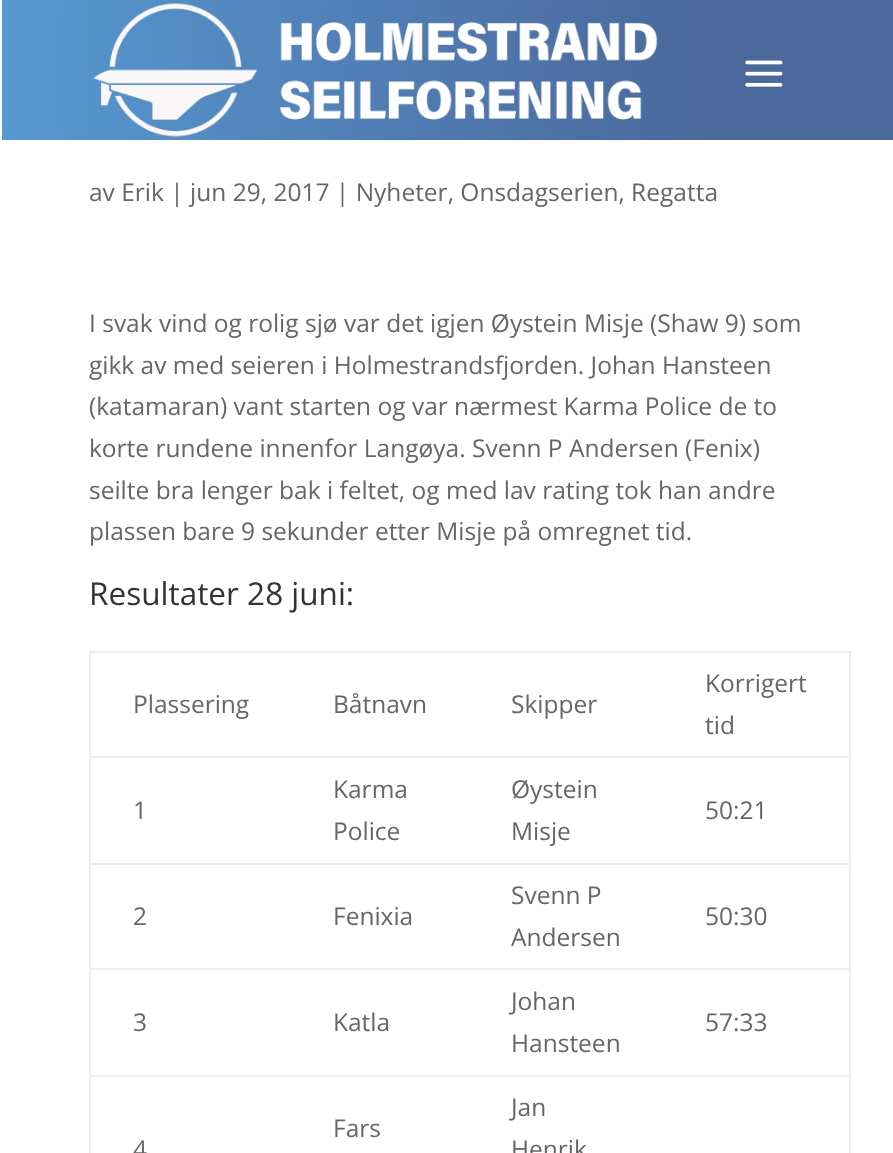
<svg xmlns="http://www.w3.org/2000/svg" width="893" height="1153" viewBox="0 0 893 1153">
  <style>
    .t1 { font: 24.5px Open Sans; fill: #666; }
    .t2 { font: 31.5px Open Sans; fill: #333; }
  </style>
  <defs>
    <radialGradient id="g1" gradientUnits="userSpaceOnUse" cx="895" cy="70" r="897"><stop offset="0.22" stop-color="#4a689c"/><stop offset="1" stop-color="#5798d1"/></radialGradient>
  </defs>
  <rect width="100%" height="100%" fill="#fff"/>
  <rect x="2" y="0" width="891" height="140" fill="url(#g1)"/>
  <image x="93" y="2" width="565" height="135" href="images/1.png"/>
  <image x="745" y="60" width="38" height="27" href="images/2.png"/>
  <text x="89" y="201" class="t1">av Erik | jun 29, 2017 | Nyheter, Onsdagserien, Regatta</text>
  <text x="89" y="332" class="t1">I svak vind og rolig sjø var det igjen Øystein Misje (Shaw 9) som</text>
  <text x="89" y="374" class="t1">gikk av med seieren i Holmestrandsfjorden. Johan Hansteen</text>
  <text x="89" y="415" class="t1">(katamaran) vant starten og var nærmest Karma Police de to</text>
  <text x="89" y="457" class="t1">korte rundene innenfor Langøya. Svenn P Andersen (Fenix)</text>
  <text x="89" y="499" class="t1">seilte bra lenger bak i feltet, og med lav rating tok han andre</text>
  <text x="89" y="540" class="t1">plassen bare 9 sekunder etter Misje på omregnet tid.</text>
  <text x="89" y="605" class="t2">Resultater 28 juni:</text>
  <rect x="89" y="651" width="762" height="2" fill="#eee"/>
  <rect x="849" y="651" width="2" height="502" fill="#eee"/>
  <rect x="89" y="651" width="2" height="502" fill="#eee"/>
  <text x="133" y="713" class="t1">Plassering</text>
  <text x="333" y="713" class="t1">Båtnavn</text>
  <text x="511" y="713" class="t1">Skipper</text>
  <text x="705" y="692" class="t1">Korrigert</text>
  <text x="705" y="734" class="t1">tid</text>
  <text x="133" y="819" class="t1">1</text>
  <text x="333" y="798" class="t1">Karma</text>
  <text x="333" y="840" class="t1">Police</text>
  <text x="511" y="798" class="t1">Øystein</text>
  <text x="511" y="840" class="t1">Misje</text>
  <rect x="89" y="756" width="762" height="2" fill="#eee"/>
  <text x="705" y="819" class="t1">50:21</text>
  <text x="133" y="925" class="t1">2</text>
  <text x="333" y="925" class="t1">Fenixia</text>
  <text x="511" y="904" class="t1">Svenn P</text>
  <text x="511" y="946" class="t1">Andersen</text>
  <rect x="89" y="863" width="762" height="2" fill="#eee"/>
  <text x="705" y="925" class="t1">50:30</text>
  <text x="133" y="1031" class="t1">3</text>
  <text x="333" y="1031" class="t1">Katla</text>
  <text x="511" y="1010" class="t1">Johan</text>
  <text x="511" y="1052" class="t1">Hansteen</text>
  <rect x="89" y="968" width="762" height="2" fill="#eee"/>
  <text x="705" y="1031" class="t1">57:33</text>
  <rect x="89" y="1075" width="762" height="2" fill="#eee"/>
  <text x="333" y="1137" class="t1">Fars</text>
  <text x="511" y="1116" class="t1">Jan</text>
  <text x="511" y="1158" class="t1">Henrik</text>
  <text x="133" y="1158" class="t1">4</text>
</svg>
